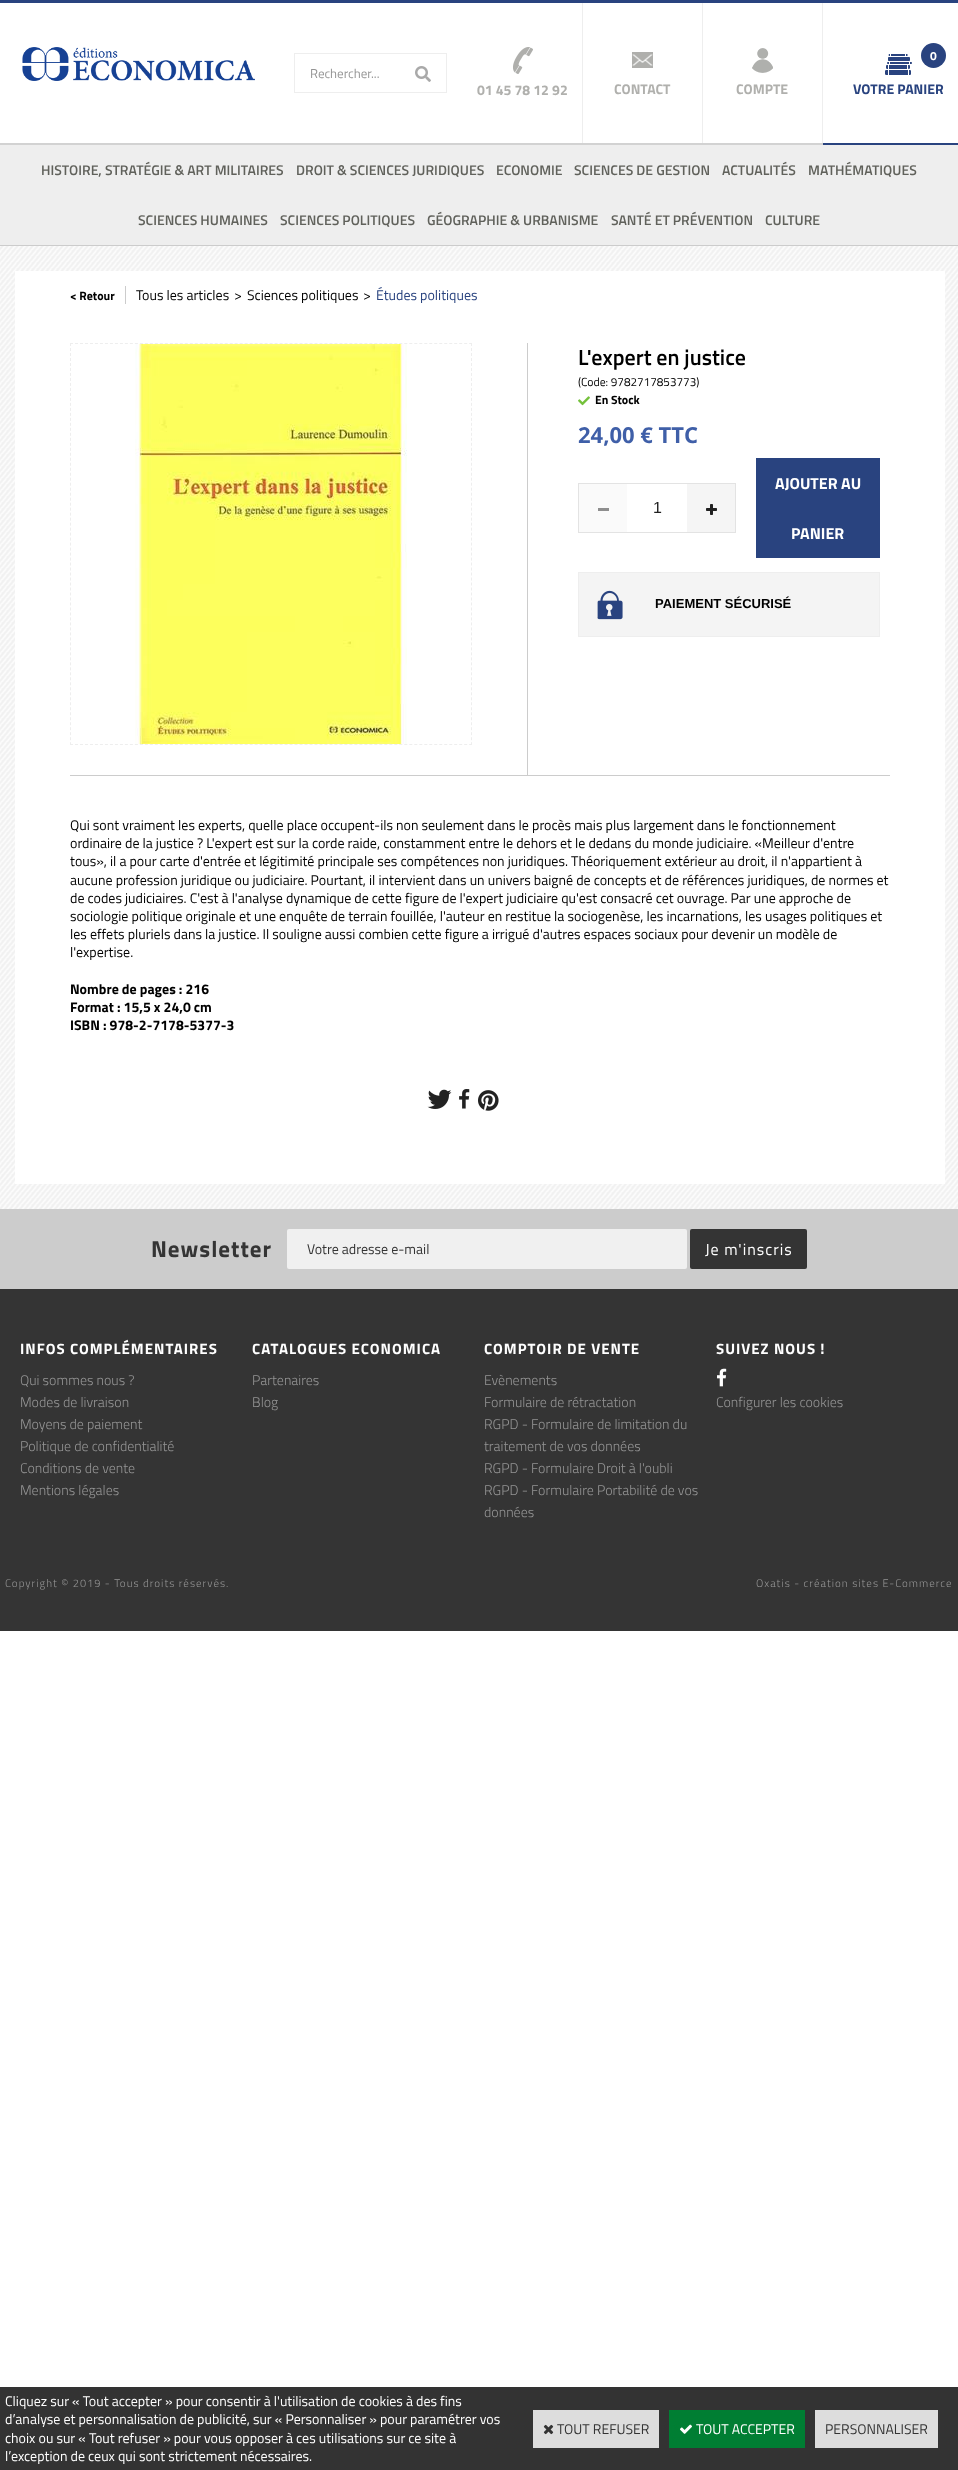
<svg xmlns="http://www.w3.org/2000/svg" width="958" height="2470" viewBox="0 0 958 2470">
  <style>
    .t1 { font: 13px Titillium Web; fill: #949494; }
    .t2 { font: bold 14px Titillium Web; fill: #b0b0ad; }
    .t3 { font: bold 12px Titillium Web; fill: #fff; }
    .t4 { font: bold 14px Titillium Web; fill: #29437f; }
    .t5 { font: 600 14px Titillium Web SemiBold; fill: #60615b; }
    .t6 { font: bold 12px Titillium Web; fill: #000; }
    .t7 { font: 14px Titillium Web; fill: #000; }
    .t8 { font: 14px Titillium Web; fill: #29437f; }
    .t9 { font: 600 22px Titillium Web SemiBold; fill: #000; }
    .t10 { font: 11.75px Titillium Web; fill: #000; }
    .t11 { font: bold 22px Open Sans; fill: #3f5fa8; }
    .t12 { font: 16px Liberation Sans; fill: #212121; }
    .t13 { font: bold 16px Titillium Web; fill: #fff; }
    .t14 { font: bold 13px Liberation Sans; fill: #000; }
    .t15 { font: bold 14px Titillium Web; fill: #000; }
    .t16 { font: bold 23px Titillium Web; letter-spacing: 1px; fill: #343434; }
    .t17 { font: 14px Titillium Web; fill: #343434; }
    .t18 { font: 16px Titillium Web; letter-spacing: 1px; fill: #fff; }
    .t19 { font: bold 15px Titillium Web; letter-spacing: 1px; fill: #fff; }
    .t20 { font: 300 14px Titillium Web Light; fill: #949494; }
    .t21 { font: 300 11px Titillium Web Light; letter-spacing: 1px; fill: #949494; }
    .t22 { font: 14px Titillium Web; fill: #fff; }
  </style>
  <rect width="100%" height="100%" fill="#fff"/>
  <rect x="0" y="0" width="958" height="3" fill="#29437f"/>
  <rect x="0" y="143" width="823" height="2" fill="#d2d2d2"/>
  <image x="22" y="47" width="233" height="34" href="images/1.png"/>
  <rect x="294" y="53" width="153" height="1" fill="#eee"/>
  <rect x="294" y="92" width="106" height="1" fill="#eee"/>
  <rect x="294" y="53" width="1" height="40" fill="#eee"/>
  <text x="310" y="78" class="t1">Rechercher...</text>
  <rect x="446" y="53" width="1" height="40" fill="#eee"/>
  <rect x="400" y="92" width="47" height="1" fill="#eee"/>
  <image x="415" y="66" width="16" height="16" href="images/2.png"/>
  <rect x="582" y="3" width="1" height="140" fill="#eee"/>
  <image x="513" y="47" width="20" height="27" href="images/3.png"/>
  <text x="477" y="95" class="t2">01 45 78 12 92</text>
  <rect x="702" y="3" width="1" height="140" fill="#eee"/>
  <image x="632" y="52" width="21" height="16" href="images/4.png"/>
  <text x="614" y="94" class="t2">CONTACT</text>
  <rect x="822" y="3" width="1" height="140" fill="#eee"/>
  <image x="752" y="48" width="21" height="25" href="images/5.png"/>
  <text x="736" y="94" class="t2">COMPTE</text>
  <rect x="823" y="143" width="135" height="2" fill="#29437f"/>
  <circle cx="933.5" cy="55.5" r="12.5" fill="#29437f"/>
  <text x="930" y="60" class="t3">0</text>
  <image x="885" y="54" width="27" height="21" href="images/6.png"/>
  <text x="853" y="94" class="t4">VOTRE PANIER</text>
  <rect x="0" y="145" width="958" height="100" fill="#eee"/>
  <rect x="0" y="245" width="958" height="1" fill="#ccc"/>
  <text x="41" y="175" class="t5">HISTOIRE, STRATÉGIE &amp; ART MILITAIRES</text>
  <text x="296" y="175" class="t5">DROIT &amp; SCIENCES JURIDIQUES</text>
  <text x="496" y="175" class="t5">ECONOMIE</text>
  <text x="574" y="175" class="t5">SCIENCES DE GESTION</text>
  <text x="722" y="175" class="t5">ACTUALITÉS</text>
  <text x="808" y="175" class="t5">MATHÉMATIQUES</text>
  <text x="138" y="225" class="t5">SCIENCES HUMAINES</text>
  <text x="280" y="225" class="t5">SCIENCES POLITIQUES</text>
  <text x="427" y="225" class="t5">GÉOGRAPHIE &amp; URBANISME</text>
  <text x="611" y="225" class="t5">SANTÉ ET PRÉVENTION</text>
  <text x="765" y="225" class="t5">CULTURE</text>
  <image x="0" y="246" width="958" height="963" href="images/7.png"/>
  <rect x="15" y="271" width="930" height="913" fill="#fff"/>
  <text x="70" y="300" class="t6">&lt; Retour</text>
  <rect x="125" y="286" width="1" height="18" fill="#ccc"/>
  <text x="136" y="300" class="t7">Tous les articles</text>
  <text x="234" y="300" class="t7">&gt;</text>
  <text x="247" y="300" class="t7">Sciences politiques</text>
  <text x="363" y="300" class="t7">&gt;</text>
  <text x="376" y="300" class="t8">Études politiques</text>
  <rect x="527" y="343" width="1" height="433" fill="#ccc"/>
  <rect x="70" y="775" width="820" height="1" fill="#ccc"/>
  <path d="M70 343.5H472" fill="none" stroke="#eee" stroke-dasharray="3 1.99"/>
  <path d="M471.5 343V745" fill="none" stroke="#eee" stroke-dasharray="3 1.99"/>
  <path d="M70 744.5H472" fill="none" stroke="#eee" stroke-dasharray="3 1.99"/>
  <path d="M70.5 343V745" fill="none" stroke="#eee" stroke-dasharray="3 1.99"/>
  <image x="135" y="344" width="272" height="400" href="images/8.png"/>
  <text x="578" y="365" class="t9">L'expert en justice</text>
  <text x="578" y="386" class="t10">(Code: 9782717853773)</text>
  <image x="578" y="396" width="12" height="10" href="images/9.png"/>
  <text x="595" y="404" class="t6">En Stock</text>
  <text x="578" y="443" class="t11">24,00 € TTC</text>
  <rect x="578.5" y="483.5" width="157" height="49" fill="none" stroke="#e3e3e3"/>
  <rect x="579" y="484" width="48" height="48" fill="#fafafa"/>
  <rect x="598" y="508" width="11" height="3" fill="#8e8e8e"/>
  <text x="653" y="513" class="t12">1</text>
  <rect x="687" y="484" width="48" height="48" fill="#f5f5f5"/>
  <image x="706" y="504" width="11" height="11" href="images/10.png"/>
  <rect x="756" y="458" width="124" height="100" fill="#29437f"/>
  <text x="775" y="489" class="t13">AJOUTER AU</text>
  <text x="791" y="539" class="t13">PANIER</text>
  <rect x="578.5" y="572.5" width="301" height="64" fill="#f4f4f4" stroke="#eee"/>
  <image x="597" y="590" width="26" height="30" href="images/11.png"/>
  <text x="655" y="608" class="t14">PAIEMENT SÉCURISÉ</text>
  <text x="70" y="830" class="t7">Qui sont vraiment les experts, quelle place occupent-ils non seulement dans le procès mais plus largement dans le fonctionnement</text>
  <text x="70" y="848" class="t7">ordinaire de la justice ? L'expert est sur la corde raide, constamment entre le dehors et le dedans du monde judiciaire. «Meilleur d'entre</text>
  <text x="70" y="866" class="t7">tous», il a pour carte d'entrée et légitimité principale ses compétences non juridiques. Théoriquement extérieur au droit, il n'appartient à</text>
  <text x="70" y="885" class="t7">aucune profession juridique ou judiciaire. Pourtant, il intervient dans un univers baigné de concepts et de références juridiques, de normes et</text>
  <text x="70" y="903" class="t7">de codes judiciaires. C'est à l'analyse dynamique de cette figure de l'expert judiciaire qu'est consacré cet ouvrage. Par une approche de</text>
  <text x="70" y="921" class="t7">sociologie politique originale et une enquête de terrain fouillée, l'auteur en restitue la sociogenèse, les incarnations, les usages politiques et</text>
  <text x="70" y="939" class="t7">les effets pluriels dans la justice. Il souligne aussi combien cette figure a irrigué d'autres espaces sociaux pour devenir un modèle de</text>
  <text x="70" y="957" class="t7">l'expertise.</text>
  <text x="70" y="994" class="t15">Nombre de pages : 216</text>
  <text x="70" y="1012" class="t15">Format : 15,5 x 24,0 cm</text>
  <text x="70" y="1030" class="t15">ISBN : 978-2-7178-5377-3</text>
  <image x="427" y="1089" width="25" height="20" href="images/12.png"/>
  <image x="459" y="1089" width="11" height="20" href="images/13.png"/>
  <image x="478" y="1090" width="21" height="21" href="images/14.png"/>
  <rect x="0" y="1289" width="958" height="342" fill="#343434"/>
  <rect x="0" y="1209" width="958" height="80" fill="#ccc"/>
  <text x="151" y="1257" class="t16">Newsletter</text>
  <rect x="287" y="1229" width="400" height="40" rx="2" fill="#f0f0f0"/>
  <text x="307" y="1254" class="t17">Votre adresse e-mail</text>
  <rect x="690" y="1229" width="117" height="40" rx="2" fill="#343434"/>
  <text x="705" y="1255" class="t18">Je m'inscris</text>
  <text x="20" y="1354" class="t19">INFOS COMPLÉMENTAIRES</text>
  <text x="20" y="1385" class="t20">Qui sommes nous ?</text>
  <text x="20" y="1407" class="t20">Modes de livraison</text>
  <text x="20" y="1429" class="t20">Moyens de paiement</text>
  <text x="20" y="1451" class="t20">Politique de confidentialité</text>
  <text x="20" y="1473" class="t20">Conditions de vente</text>
  <text x="20" y="1495" class="t20">Mentions légales</text>
  <text x="252" y="1354" class="t19">CATALOGUES ECONOMICA</text>
  <text x="252" y="1385" class="t20">Partenaires</text>
  <text x="252" y="1407" class="t20">Blog</text>
  <text x="484" y="1354" class="t19">COMPTOIR DE VENTE</text>
  <text x="484" y="1385" class="t20">Evènements</text>
  <text x="484" y="1407" class="t20">Formulaire de rétractation</text>
  <text x="484" y="1429" class="t20">RGPD - Formulaire de limitation du</text>
  <text x="484" y="1451" class="t20">traitement de vos données</text>
  <text x="484" y="1473" class="t20">RGPD - Formulaire Droit à l'oubli</text>
  <text x="484" y="1495" class="t20">RGPD - Formulaire Portabilité de vos</text>
  <text x="484" y="1517" class="t20">données</text>
  <text x="716" y="1354" class="t19">SUIVEZ NOUS !</text>
  <image x="717" y="1368" width="10" height="19" href="images/15.png"/>
  <text x="716" y="1407" class="t20">Configurer les cookies</text>
  <text x="5" y="1587" class="t21">Copyright © 2019 - Tous droits réservés.</text>
  <text x="756" y="1587" class="t21">Oxatis - création sites E-Commerce</text>
  <rect x="0" y="2387" width="958" height="83" fill="#333"/>
  <text x="5" y="2406" class="t22">Cliquez sur « Tout accepter » pour consentir à l'utilisation de cookies à des fins</text>
  <text x="5" y="2424" class="t22">d’analyse et personnalisation de publicité, sur « Personnaliser » pour paramétrer vos</text>
  <text x="5" y="2443" class="t22">choix ou sur « Tout refuser » pour vous opposer à ces utilisations sur ce site à</text>
  <text x="5" y="2461" class="t22">l’exception de ceux qui sont strictement nécessaires.</text>
  <rect x="533" y="2410" width="126" height="38" fill="#ddd"/>
  <image x="543" y="2424" width="11" height="11" href="images/16.png"/>
  <text x="557" y="2434" class="t17">TOUT REFUSER</text>
  <rect x="669" y="2410" width="136" height="38" fill="#007e33"/>
  <image x="680" y="2424" width="12" height="10" href="images/17.png"/>
  <text x="696" y="2434" class="t22">TOUT ACCEPTER</text>
  <rect x="815" y="2410" width="123" height="38" fill="#ddd"/>
  <text x="825" y="2434" class="t17">PERSONNALISER</text>
</svg>
